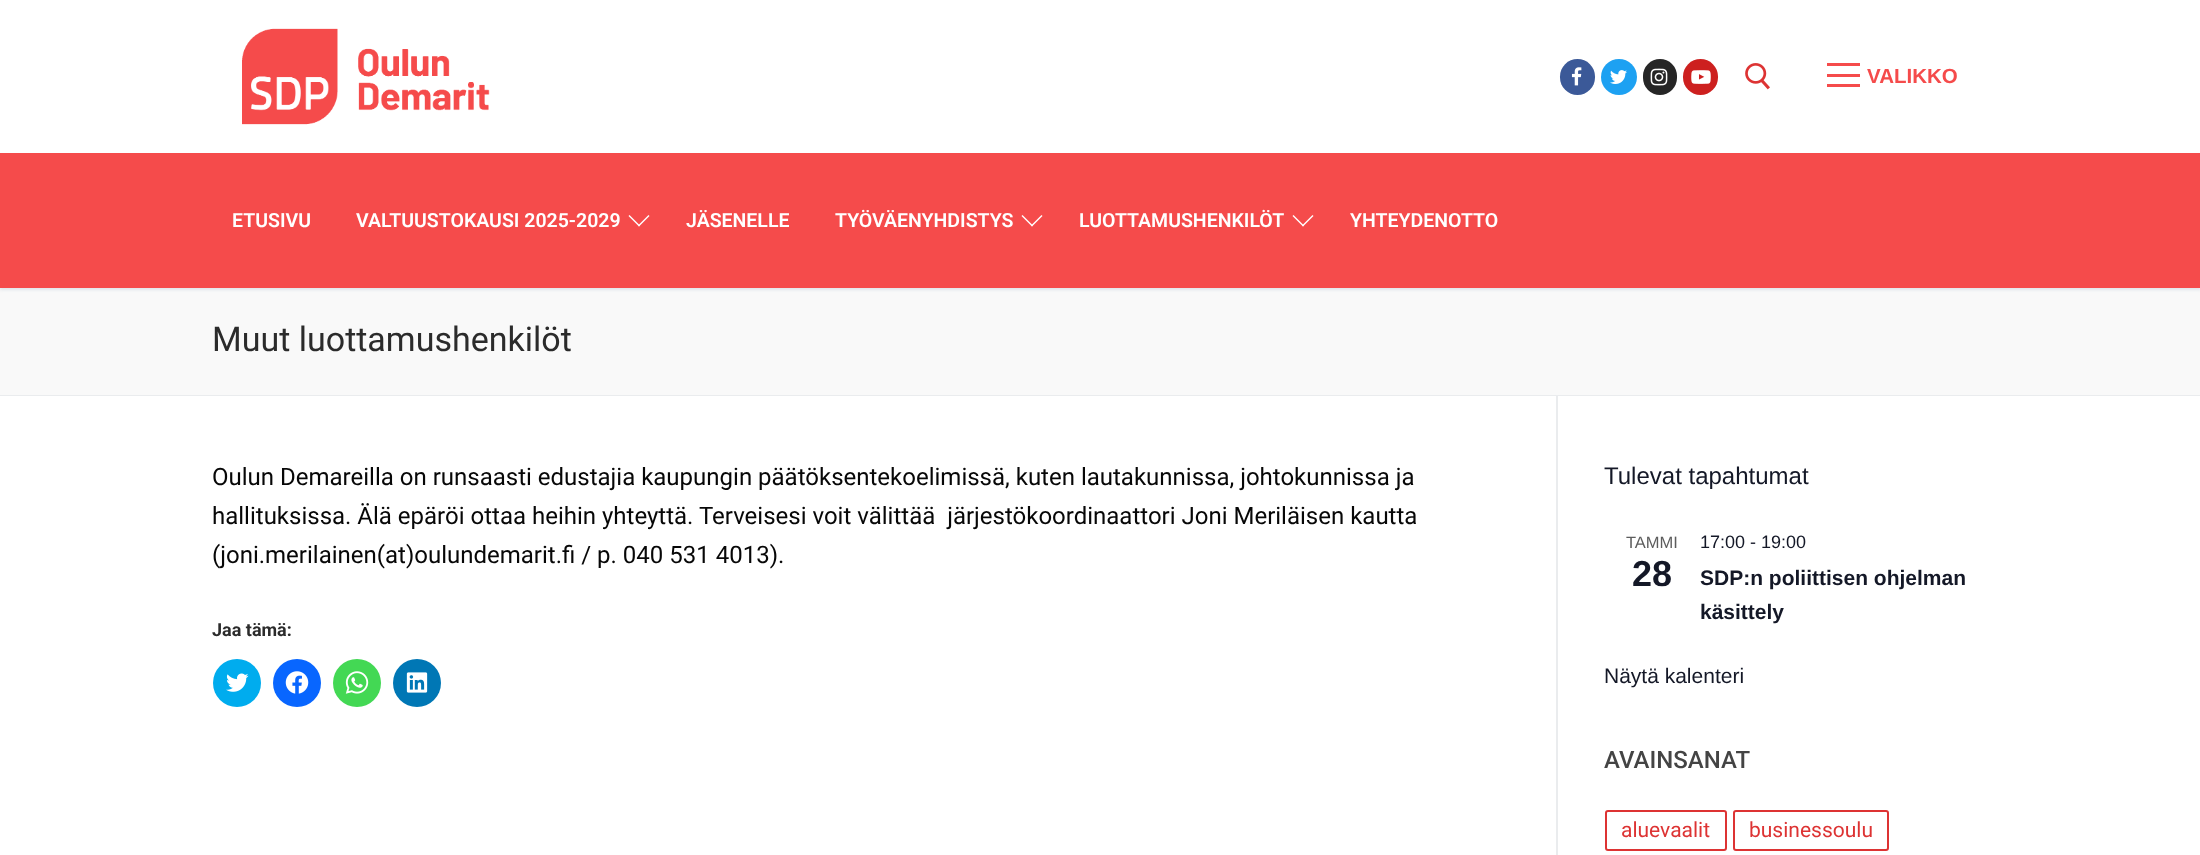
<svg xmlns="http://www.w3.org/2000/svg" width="2200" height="855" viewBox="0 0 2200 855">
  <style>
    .t1 { font: bold 20.5px Liberation Sans; fill: #f54b4b; }
    .t2 { font: 600 19.5px Roboto; fill: #fff; }
    .t3 { font: 34px Roboto; fill: #2b2b2b; }
    .t4 { font: 24px Roboto; fill: #070707; }
    .t5 { font: bold 18px Roboto; fill: #2b2b2b; }
    .t6 { font: 24px Liberation Sans; fill: #141827; }
    .t7 { font: 16.5px Liberation Sans; fill: #5d5d5d; }
    .t8 { font: bold 36px Liberation Sans; fill: #141827; }
    .t9 { font: 18px Liberation Sans; fill: #141827; }
    .t10 { font: bold 21px Liberation Sans; fill: #141827; }
    .t11 { font: 21px Liberation Sans; fill: #141827; }
    .t12 { font: 500 24px Roboto; fill: #444; }
    .t13 { font: 21px Roboto; fill: #d33; }
  </style>
  <rect width="100%" height="100%" fill="#fff"/>
  <image x="242" y="28" width="248" height="97" href="images/1.png"/>
  <rect x="1560" y="59" width="35" height="36" rx="17.5" fill="#3b5998"/>
  <image x="1571" y="67" width="11" height="19" href="images/2.png"/>
  <circle cx="1619" cy="77" r="18" fill="#1da1f2"/>
  <image x="1610" y="70" width="17" height="14" href="images/3.png"/>
  <rect x="1643" y="59" width="34" height="36" rx="17" fill="#262626"/>
  <image x="1650" y="68" width="18" height="18" href="images/4.png"/>
  <rect x="1683" y="59" width="35" height="36" rx="17.5" fill="#cd201f"/>
  <image x="1691" y="70" width="20" height="14" href="images/5.png"/>
  <image x="1745" y="63" width="25" height="27" href="images/6.png"/>
  <rect x="1827" y="74" width="33" height="3" fill="#f54b4b"/>
  <rect x="1827" y="63" width="33" height="3" fill="#f54b4b"/>
  <rect x="1827" y="84" width="33" height="3" fill="#f54b4b"/>
  <text x="1867" y="83" class="t1">VALIKKO</text>
  <rect x="0" y="288" width="2200" height="107" fill="#f9f9f9"/>
  <rect x="0" y="155" width="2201" height="135" fill="#e1e5ea" filter="blur(1.5px)"/>
  <rect x="0" y="153" width="2200" height="135" fill="#f54b4b"/>
  <text x="232" y="227" class="t2">ETUSIVU</text>
  <text x="356" y="227" class="t2">VALTUUSTOKAUSI 2025-2029</text>
  <path d="M639 226.5L628.5 216L629.5 215L640 225.5Z" fill="#fff"/>
  <path d="M639 226.5L638 225.5L648.5 215L649.5 216Z" fill="#fff"/>
  <text x="686" y="227" class="t2">JÄSENELLE</text>
  <text x="835" y="227" class="t2">TYÖVÄENYHDISTYS</text>
  <path d="M1032 226.5L1021.5 216L1022.5 215L1033 225.5Z" fill="#fff"/>
  <path d="M1032 226.5L1031 225.5L1041.5 215L1042.5 216Z" fill="#fff"/>
  <text x="1079" y="227" class="t2">LUOTTAMUSHENKILÖT</text>
  <path d="M1303 226.5L1292.5 216L1293.5 215L1304 225.5Z" fill="#fff"/>
  <path d="M1303 226.5L1302 225.5L1312.5 215L1313.5 216Z" fill="#fff"/>
  <text x="1350" y="227" class="t2">YHTEYDENOTTO</text>
  <rect x="0" y="395" width="2200" height="1" fill="#eaecee"/>
  <text x="212" y="351" class="t3">Muut luottamushenkilöt</text>
  <rect x="1556" y="396" width="2" height="459" fill="#eaecee"/>
  <text x="212" y="485" class="t4">Oulun Demareilla on runsaasti edustajia kaupungin päätöksentekoelimissä, kuten lautakunnissa, johtokunnissa ja</text>
  <text x="212" y="524" class="t4" xml:space="preserve">hallituksissa. Älä epäröi ottaa heihin yhteyttä. Terveisesi voit välittää  järjestökoordinaattori Joni Meriläisen kautta</text>
  <text x="212" y="563" class="t4">(joni.merilainen(at)oulundemarit.fi / p. 040 531 4013).</text>
  <text x="212" y="636" class="t5">Jaa tämä:</text>
  <circle cx="237" cy="683" r="24" fill="#00acee"/>
  <image x="226" y="673" width="23" height="19" href="images/7.png"/>
  <circle cx="297" cy="683" r="24" fill="#0866ff"/>
  <image x="285" y="671" width="24" height="23" href="images/8.png"/>
  <circle cx="357" cy="683" r="24" fill="#43d854"/>
  <image x="345" y="671" width="24" height="23" href="images/9.png"/>
  <circle cx="417" cy="683" r="24" fill="#0077b5"/>
  <image x="406" y="672" width="22" height="21" href="images/10.png"/>
  <text x="1604" y="484" class="t6">Tulevat tapahtumat</text>
  <text x="1626" y="548" class="t7">TAMMI</text>
  <text x="1632" y="586" class="t8">28</text>
  <text x="1700" y="548" class="t9">17:00 - 19:00</text>
  <text x="1700" y="585" class="t10">SDP:n poliittisen ohjelman</text>
  <text x="1700" y="619" class="t10">käsittely</text>
  <text x="1604" y="683" class="t11">Näytä kalenteri</text>
  <text x="1604" y="768" class="t12">AVAINSANAT</text>
  <rect x="1606" y="811" width="120" height="39" rx="2" fill="none" stroke="#d33" stroke-width="2"/>
  <text x="1621" y="837" class="t13">aluevaalit</text>
  <rect x="1734" y="811" width="154" height="39" rx="2" fill="none" stroke="#d33" stroke-width="2"/>
  <text x="1749" y="837" class="t13">businessoulu</text>
</svg>
